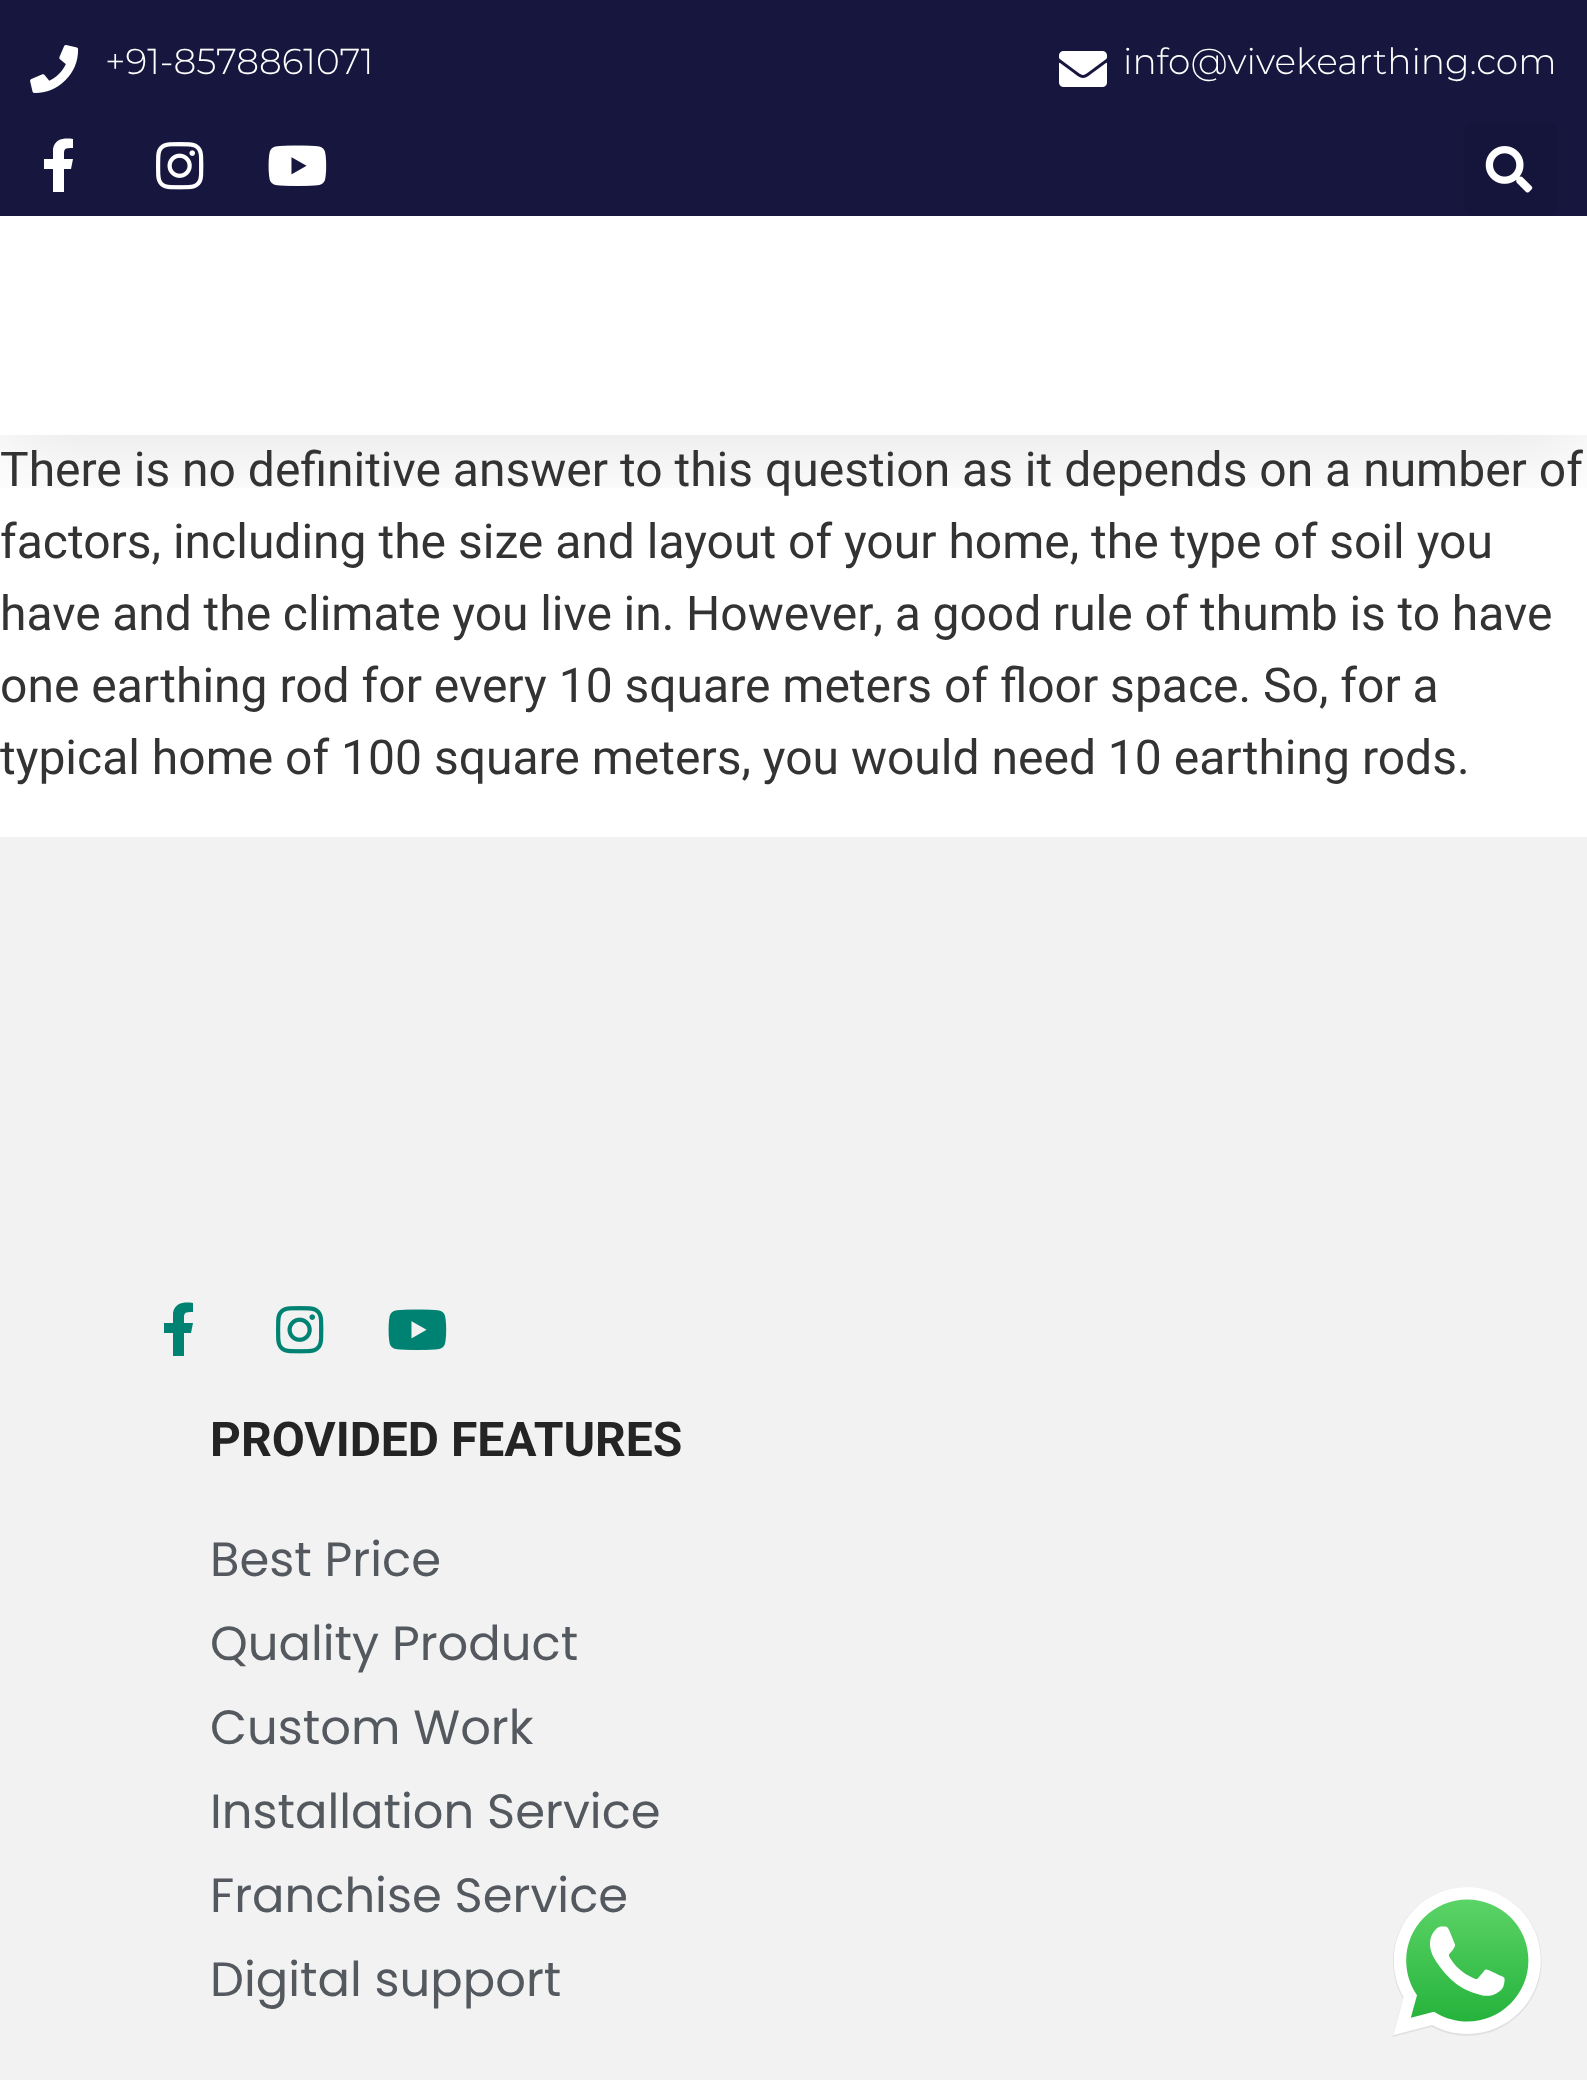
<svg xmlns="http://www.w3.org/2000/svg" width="1587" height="2080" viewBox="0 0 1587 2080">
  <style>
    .t1 { font: 300 36px Montserrat; fill: #fff; }
    .t2 { font: 48px Roboto; fill: #333; }
    .t3 { font: bold 48px Roboto; fill: #242424; }
    .t4 { font: 48px Poppins; fill: #54595f; }
  </style>
  <defs>
    <clipPath id="clip1"><rect x="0" y="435" width="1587" height="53"/></clipPath>
    <clipPath id="clip2"><rect x="30" y="123" width="891" height="69"/></clipPath>
    <clipPath id="clip3"><rect x="150" y="1287" width="1287" height="69"/></clipPath>
  </defs>
  <rect width="100%" height="100%" fill="#fff"/>
  <g clip-path="url(#clip1)">
    <rect x="0" y="15" width="1587" height="435" fill="#0000001a" filter="blur(45px)"/>
  </g>
  <rect x="0" y="0" width="1587" height="216" fill="#16163f"/>
  <image x="30" y="45" width="49" height="48" href="images/1.png"/>
  <text x="105" y="74" class="t1">+91-8578861071</text>
  <image x="1059" y="51" width="48" height="36" href="images/2.png"/>
  <text x="1123" y="74" class="t1">info@vivekearthing.com</text>
  <g clip-path="url(#clip2)">
    <path d="M71 169H64V193H53V169H44V159H53V149C55 138 65 138 73 139V148C63 148 64 149 64 159H73Z" fill="#fff"/>
  </g>
  <image x="156" y="142" width="48" height="48" href="images/3.png"/>
  <image x="268" y="145" width="59" height="41" href="images/4.png"/>
  <rect x="1464" y="123" width="93" height="93" rx="9" fill="#15153c"/>
  <image x="1485" y="146" width="48" height="47" href="images/5.png"/>
  <text x="0" y="486" class="t2">There is no definitive answer to this question as it depends on a number of</text>
  <text x="0" y="558" class="t2">factors, including the size and layout of your home, the type of soil you</text>
  <text x="0" y="630" word-spacing="-0.25" class="t2">have and the climate you live in. However, a good rule of thumb is to have</text>
  <text x="0" y="702" class="t2">one earthing rod for every 10 square meters of floor space. So, for a</text>
  <text x="0" y="774" class="t2">typical home of 100 square meters, you would need 10 earthing rods.</text>
  <rect x="0" y="837" width="1587" height="1243" fill="#f2f2f2"/>
  <g clip-path="url(#clip3)">
    <path d="M191 1333H184V1357H173V1333H164V1323H173V1313C175 1302 185 1302 193 1303V1312C183 1312 184 1313 184 1323H193Z" fill="#008272"/>
  </g>
  <image x="276" y="1306" width="48" height="48" href="images/6.png"/>
  <image x="388" y="1309" width="59" height="41" href="images/7.png"/>
  <text x="210" y="1456" class="t3">PROVIDED FEATURES</text>
  <text x="210" y="1576" class="t4">Best Price</text>
  <text x="210" y="1660" class="t4">Quality Product</text>
  <text x="210" y="1744" class="t4">Custom Work</text>
  <text x="210" y="1828" class="t4">Installation Service</text>
  <text x="210" y="1912" class="t4">Franchise Service</text>
  <text x="210" y="1996" class="t4">Digital support</text>
  <image x="1392" y="1887" width="150" height="150" href="images/8.png"/>
</svg>
